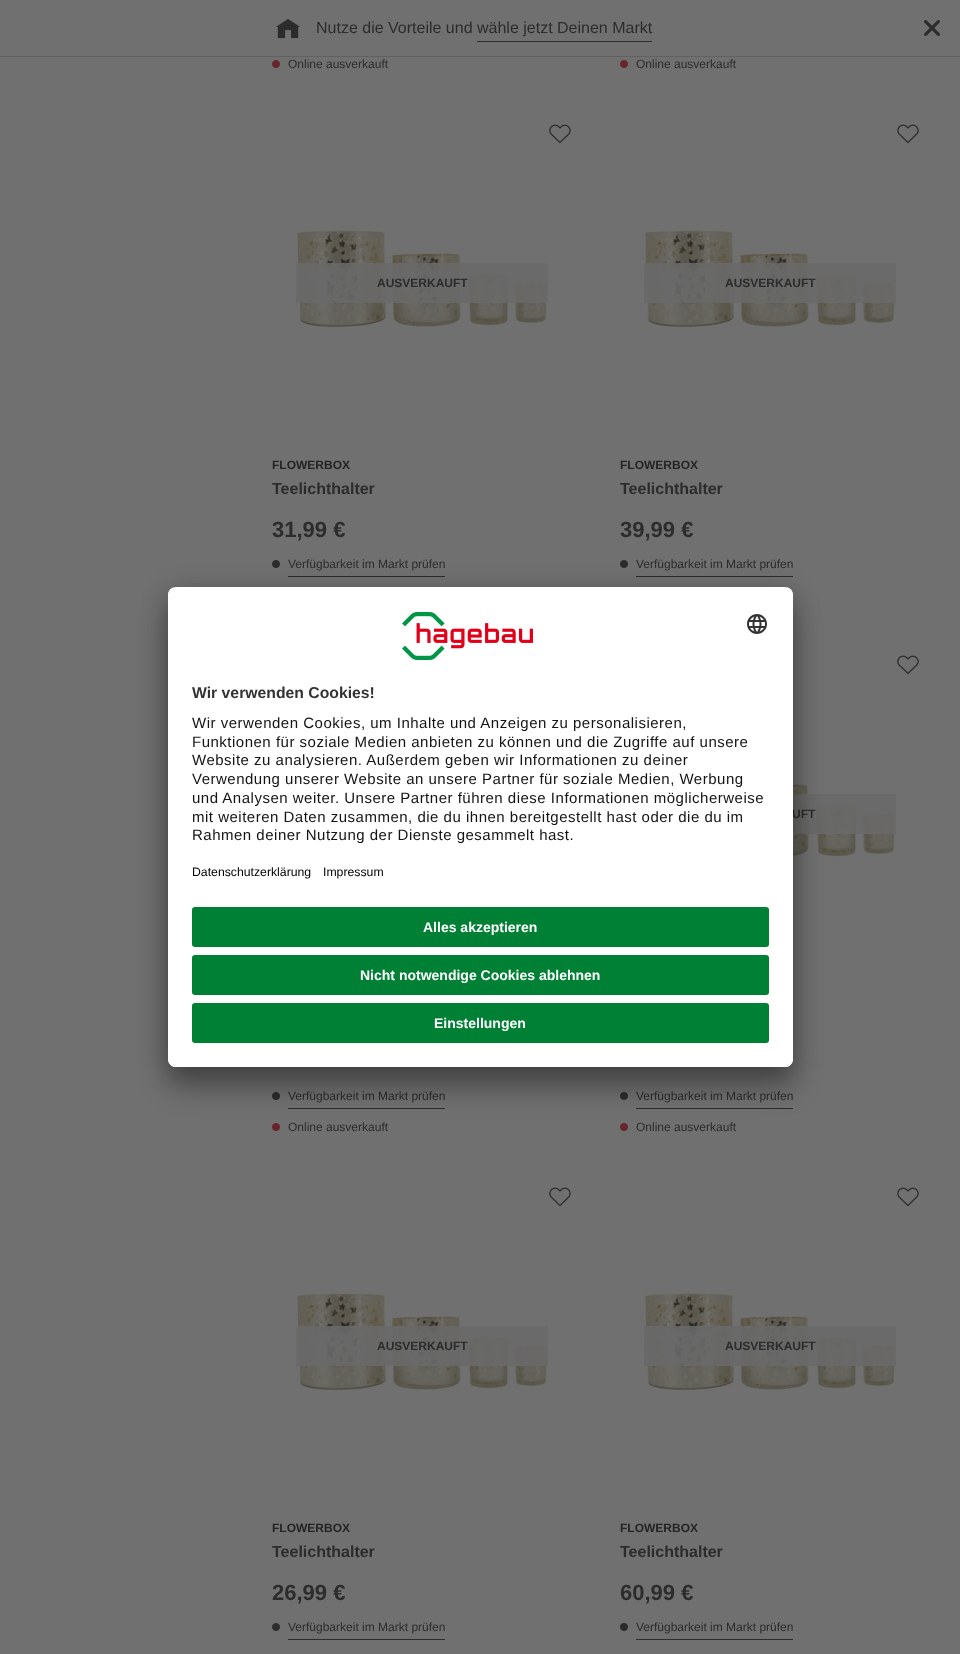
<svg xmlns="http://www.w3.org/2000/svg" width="960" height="1654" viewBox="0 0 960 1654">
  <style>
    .t1 { font: 16px Liberation Sans; fill: #2c2c2c; }
    .t2 { font: 12px Liberation Sans; fill: #2c2c2c; }
    .t3 { font: bold 12px Liberation Sans; fill: #2c2c2c; }
    .t4 { font: bold 12px Liberation Sans; fill: #242424; }
    .t5 { font: bold 16px Liberation Sans; fill: #2c2c2c; }
    .t6 { font: bold 22px Liberation Sans; fill: #2c2c2c; }
    .t7 { font: bold 15.75px Liberation Sans; fill: #333; }
    .t8 { font: 15px Liberation Sans; letter-spacing: 0.5px; fill: #141414; }
    .t9 { font: 12.25px Liberation Sans; fill: #000; }
    .t10 { font: bold 14px Liberation Sans; fill: #fff; }
  </style>
  <defs>
    <clipPath id="clip1"><rect x="168" y="587" width="625" height="480" rx="8"/></clipPath>
    <clipPath id="clip2"><path d="M176 587H785C789.5 587 793 590.5 793 595V895H168V595C168 590.5 171.5 587 176 587Z"/></clipPath>
  </defs>
  <rect width="100%" height="100%" fill="#707070"/>
  <rect x="0" y="56" width="960" height="1" fill="#616161"/>
  <image x="276" y="19" width="24" height="20" href="images/1.png"/>
  <text x="316" y="33" class="t1">Nutze die Vorteile und wähle jetzt Deinen Markt</text>
  <rect x="477" y="41" width="175" height="1" fill="#2c2c2c"/>
  <image x="924" y="20" width="16" height="16" href="images/2.png"/>
  <image x="272" y="60" width="8" height="8" href="images/3.png"/>
  <text x="288" y="68" class="t2">Online ausverkauft</text>
  <image x="620" y="60" width="8" height="8" href="images/3.png"/>
  <text x="636" y="68" class="t2">Online ausverkauft</text>
  <image x="549" y="124" width="22" height="20" href="images/4.png"/>
  <image x="296" y="229" width="252" height="99" href="images/5.png"/>
  <rect x="296" y="263" width="252" height="40" fill="#696969e6"/>
  <text x="377" y="287" class="t3">AUSVERKAUFT</text>
  <text x="272" y="469" class="t4">FLOWERBOX</text>
  <text x="272" y="494" class="t5">Teelichthalter</text>
  <text x="272" y="537" class="t6">31,99 €</text>
  <image x="272" y="560" width="8" height="8" href="images/6.png"/>
  <rect x="288" y="576" width="157" height="1" fill="#2c2c2c"/>
  <text x="288" y="568" class="t2">Verfügbarkeit im Markt prüfen</text>
  <image x="897" y="124" width="22" height="20" href="images/4.png"/>
  <image x="644" y="229" width="252" height="99" href="images/5.png"/>
  <rect x="644" y="263" width="252" height="40" fill="#696969e6"/>
  <text x="725" y="287" class="t3">AUSVERKAUFT</text>
  <text x="620" y="469" class="t4">FLOWERBOX</text>
  <text x="620" y="494" class="t5">Teelichthalter</text>
  <text x="620" y="537" class="t6">39,99 €</text>
  <image x="620" y="560" width="8" height="8" href="images/6.png"/>
  <rect x="636" y="576" width="157" height="1" fill="#2c2c2c"/>
  <text x="636" y="568" class="t2">Verfügbarkeit im Markt prüfen</text>
  <image x="272" y="1092" width="8" height="8" href="images/6.png"/>
  <rect x="288" y="1108" width="157" height="1" fill="#2c2c2c"/>
  <text x="288" y="1100" class="t2">Verfügbarkeit im Markt prüfen</text>
  <image x="272" y="1123" width="8" height="8" href="images/3.png"/>
  <text x="288" y="1131" class="t2">Online ausverkauft</text>
  <image x="897" y="655" width="22" height="20" href="images/4.png"/>
  <image x="793" y="760" width="103" height="99" href="images/7.png"/>
  <rect x="793" y="794" width="103" height="40" fill="#696969e6"/>
  <text x="792" y="818" class="t3">UFT</text>
  <image x="620" y="1092" width="8" height="8" href="images/6.png"/>
  <rect x="636" y="1108" width="157" height="1" fill="#2c2c2c"/>
  <text x="636" y="1100" class="t2">Verfügbarkeit im Markt prüfen</text>
  <image x="620" y="1123" width="8" height="8" href="images/3.png"/>
  <text x="636" y="1131" class="t2">Online ausverkauft</text>
  <image x="549" y="1187" width="22" height="20" href="images/4.png"/>
  <image x="296" y="1292" width="252" height="99" href="images/5.png"/>
  <rect x="296" y="1326" width="252" height="40" fill="#696969e6"/>
  <text x="377" y="1350" class="t3">AUSVERKAUFT</text>
  <text x="272" y="1532" class="t4">FLOWERBOX</text>
  <text x="272" y="1557" class="t5">Teelichthalter</text>
  <text x="272" y="1600" class="t6">26,99 €</text>
  <image x="272" y="1623" width="8" height="8" href="images/6.png"/>
  <rect x="288" y="1639" width="157" height="1" fill="#2c2c2c"/>
  <text x="288" y="1631" class="t2">Verfügbarkeit im Markt prüfen</text>
  <image x="897" y="1187" width="22" height="20" href="images/4.png"/>
  <image x="644" y="1292" width="252" height="99" href="images/5.png"/>
  <rect x="644" y="1326" width="252" height="40" fill="#696969e6"/>
  <text x="725" y="1350" class="t3">AUSVERKAUFT</text>
  <text x="620" y="1532" class="t4">FLOWERBOX</text>
  <text x="620" y="1557" class="t5">Teelichthalter</text>
  <text x="620" y="1600" class="t6">60,99 €</text>
  <image x="620" y="1623" width="8" height="8" href="images/6.png"/>
  <rect x="636" y="1639" width="157" height="1" fill="#2c2c2c"/>
  <text x="636" y="1631" class="t2">Verfügbarkeit im Markt prüfen</text>
  <rect x="168" y="607" width="625" height="480" rx="8" fill="#0000004d" filter="blur(14px)"/>
  <rect x="168" y="592" width="625" height="480" rx="8" fill="#00000038" filter="blur(13px)"/>
  <rect x="168" y="587" width="625" height="480" rx="8" fill="#fff"/>
  <g clip-path="url(#clip1)">
    <g clip-path="url(#clip2)">
      <rect x="168" y="588" width="625" height="307" fill="#fff"/>
    </g>
  </g>
  <image x="402" y="612" width="131" height="48" href="images/8.png"/>
  <image x="747" y="614" width="20" height="20" href="images/9.png"/>
  <text x="192" y="698" class="t7">Wir verwenden Cookies!</text>
  <text x="192" y="728" class="t8">Wir verwenden Cookies, um Inhalte und Anzeigen zu personalisieren,</text>
  <text x="192" y="747" class="t8">Funktionen für soziale Medien anbieten zu können und die Zugriffe auf unsere</text>
  <text x="192" y="765" class="t8">Website zu analysieren. Außerdem geben wir Informationen zu deiner</text>
  <text x="192" y="784" class="t8">Verwendung unserer Website an unsere Partner für soziale Medien, Werbung</text>
  <text x="192" y="803" class="t8">und Analysen weiter. Unsere Partner führen diese Informationen möglicherweise</text>
  <text x="192" y="822" class="t8">mit weiteren Daten zusammen, die du ihnen bereitgestellt hast oder die du im</text>
  <text x="192" y="840" class="t8">Rahmen deiner Nutzung der Dienste gesammelt hast.</text>
  <text x="192" y="876" class="t9">Datenschutzerklärung</text>
  <text x="323" y="876" class="t9">Impressum</text>
  <path d="M168 895H793V1059C793 1063.5 789.5 1067 785 1067H176C171.5 1067 168 1063.5 168 1059Z" fill="#fff"/>
  <rect x="192" y="907" width="577" height="40" rx="3" fill="#008035"/>
  <text x="423" y="932" class="t10">Alles akzeptieren</text>
  <rect x="192" y="955" width="577" height="40" rx="3" fill="#008035"/>
  <text x="360" y="980" class="t10">Nicht notwendige Cookies ablehnen</text>
  <rect x="192" y="1003" width="577" height="40" rx="3" fill="#008035"/>
  <text x="434" y="1028" class="t10">Einstellungen</text>
</svg>
